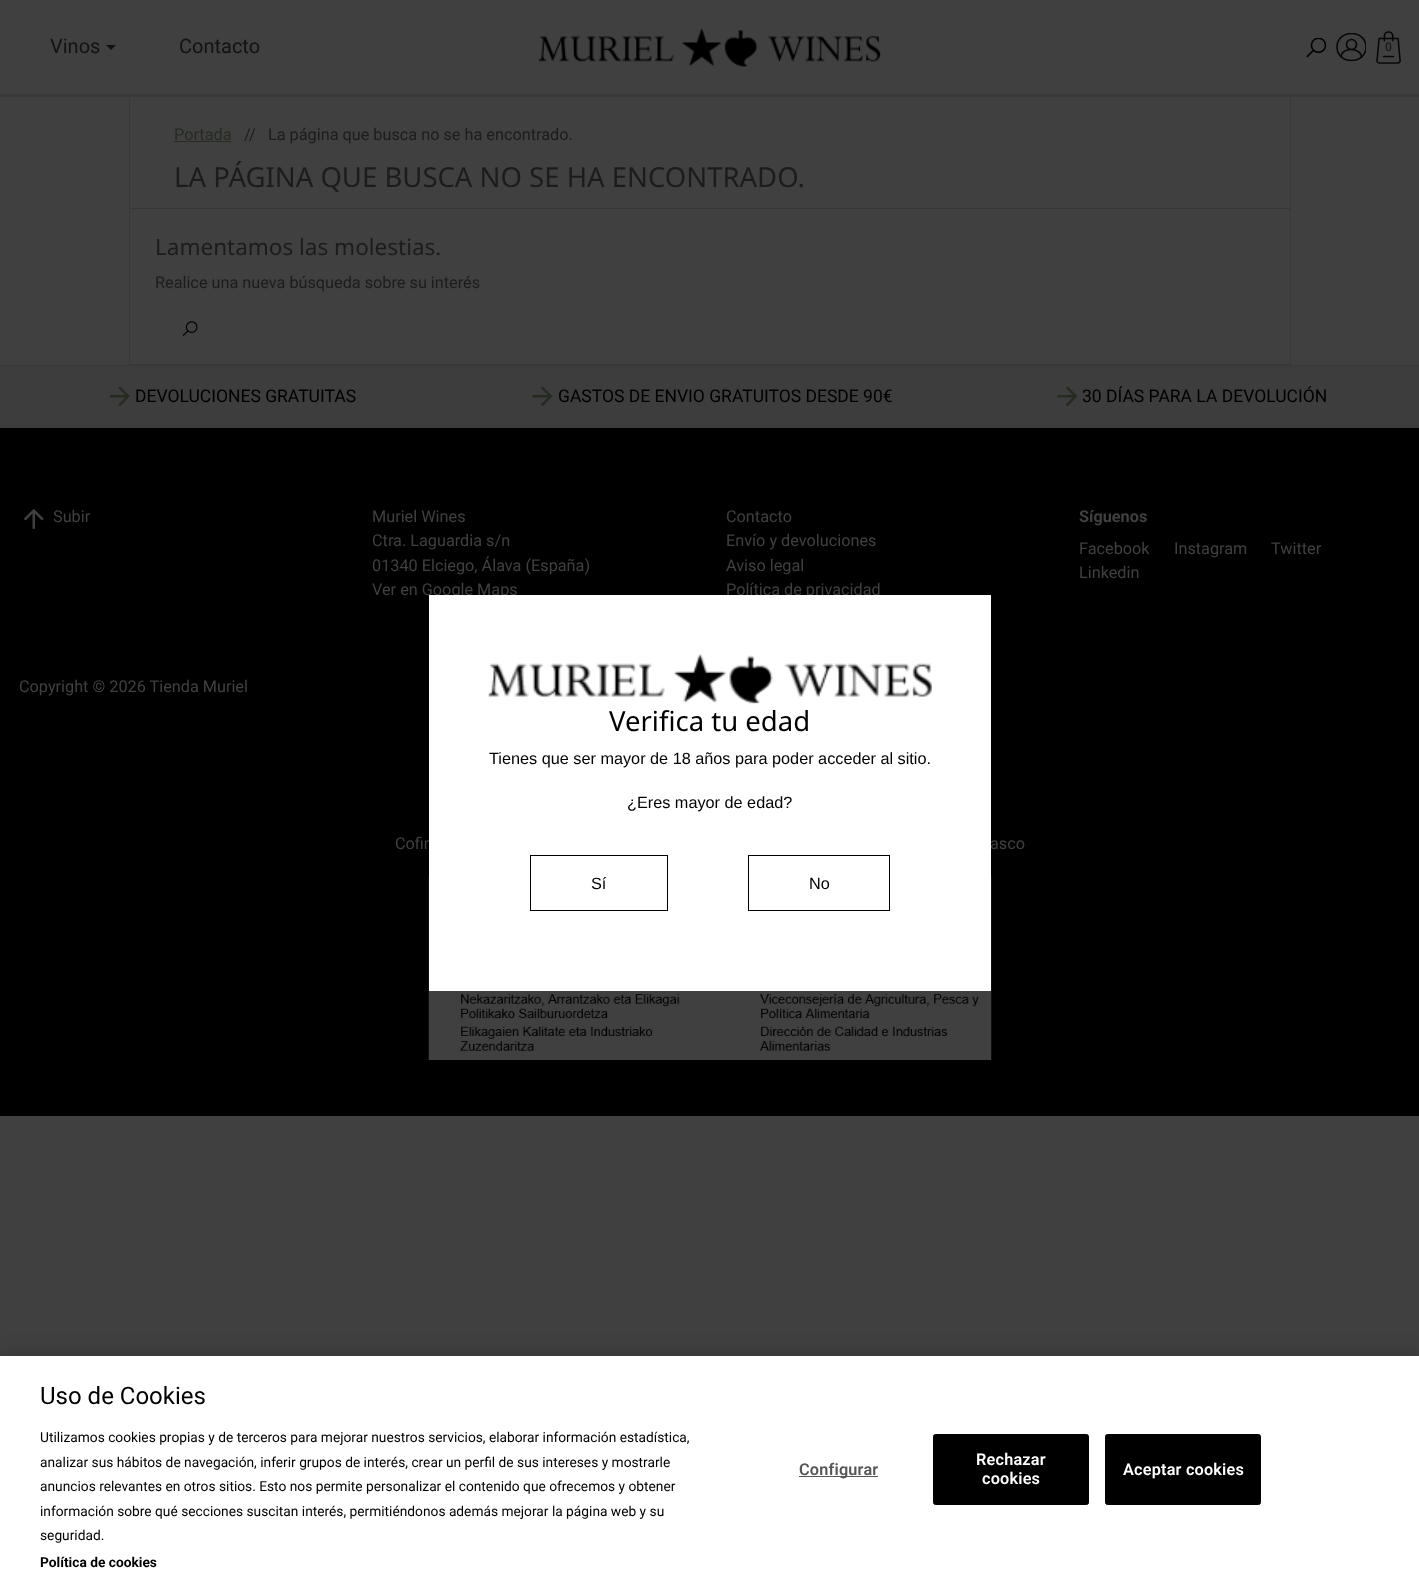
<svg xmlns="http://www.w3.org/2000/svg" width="1419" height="1586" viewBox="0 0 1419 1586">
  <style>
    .t1 { font: 20px Roboto; fill: #121212; }
    .t2 { font: 600 12px Roboto; fill: #1c1c1c; }
    .t3 { font: 16.25px Roboto; fill: #252b20; }
    .t4 { font: 16.25px Roboto; fill: #1c1c1c; }
    .t5 { font: 27.5px Noto Sans; fill: #1c1c1c; }
    .t6 { font: 22.5px Noto Sans; fill: #1c1c1c; }
    .t7 { font: 17.5px Roboto; fill: #000; }
    .t8 { font: 16.25px Roboto; fill: #404040; }
    .t9 { font: bold 16.25px Roboto; fill: #404040; }
    .t10 { font: 27.5px Noto Sans; fill: #000; }
    .t11 { font: 16.25px Liberation Sans; fill: #000; }
    .t12 { font: 24px Roboto; fill: #000; }
    .t13 { font: 13.75px Roboto; fill: #000; }
    .t14 { font: bold 13.75px Roboto; fill: #000; }
    .t15 { font: 600 16.25px Roboto; letter-spacing: 0.2px; fill: #565656; }
    .t16 { font: 600 16.25px Roboto; letter-spacing: 0.2px; fill: #fff; }
  </style>
  <defs>
    <clipPath id="clip1"><rect x="1336" y="33" width="30" height="28"/></clipPath>
  </defs>
  <rect width="100%" height="100%" fill="#404040"/>
  <rect x="129.5" y="94.5" width="1161" height="270" fill="none" stroke="#383838"/>
  <rect x="0" y="94" width="1419" height="3" fill="#393939"/>
  <text x="50" y="53" class="t1">Vinos</text>
  <path d="M106 45H116L111 50Z" fill="#121212"/>
  <text x="179" y="53" class="t1">Contacto</text>
  <image x="538" y="28" width="343" height="39" href="images/1.png"/>
  <image x="1306" y="38" width="20" height="20" href="images/2.png"/>
  <g clip-path="url(#clip1)">
    <path d="M1366 47C1366 65 1337 65 1337 47C1337 29 1366 29 1366 47Z" fill="none" stroke="#070707" stroke-width="1.6"/>
  </g>
  <circle cx="1351.5" cy="44.5" r="5" fill="none" stroke="#070707" stroke-width="1.6"/>
  <path d="M1361.5 57.5C1361.5 47 1341 47 1341 57" fill="none" stroke="#070707" stroke-width="1.6"/>
  <image x="1376" y="31" width="25" height="33" href="images/3.png"/>
  <text x="1385" y="51" class="t2">0</text>
  <rect x="130" y="208" width="1160" height="1" fill="#363636"/>
  <text x="174" y="140" class="t3">Portada</text>
  <rect x="174" y="141" width="57" height="1" fill="#252b20"/>
  <text x="244" y="140" class="t4">//</text>
  <text x="268" y="140" class="t4">La página que busca no se ha encontrado.</text>
  <text x="174" y="187" class="t5">LA PÁGINA QUE BUSCA NO SE HA ENCONTRADO.</text>
  <text x="155" y="255" class="t6">Lamentamos las molestias.</text>
  <text x="155" y="288" class="t4">Realice una nueva búsqueda sobre su interés</text>
  <image x="183" y="321" width="15" height="15" href="images/4.png"/>
  <rect x="0" y="428" width="1419" height="688" fill="#000"/>
  <rect x="0" y="366" width="1419" height="62" fill="#3d3d3d"/>
  <rect x="0" y="365" width="1419" height="1" fill="#3a3939"/>
  <rect x="0" y="426" width="1419" height="1" fill="#3a3939"/>
  <image x="110" y="386" width="20" height="21" href="images/5.png"/>
  <text x="135" y="402" class="t7">DEVOLUCIONES GRATUITAS</text>
  <image x="532" y="386" width="21" height="21" href="images/6.png"/>
  <text x="558" y="402" class="t7">GASTOS DE ENVIO GRATUITOS DESDE 90€</text>
  <image x="1057" y="386" width="21" height="21" href="images/6.png"/>
  <text x="1082" y="402" class="t7">30 DÍAS PARA LA DEVOLUCIÓN</text>
  <image x="23" y="508" width="21" height="21" href="images/7.png"/>
  <text x="53" y="522" class="t8">Subir</text>
  <text x="19" y="692" class="t8">Copyright © 2026 Tienda Muriel</text>
  <text x="372" y="522" class="t8">Muriel Wines</text>
  <text x="372" y="546" class="t8">Ctra. Laguardia s/n</text>
  <text x="372" y="571" class="t8">01340 Elciego, Álava (España)</text>
  <text x="372" y="595" class="t8">Ver en Google Maps</text>
  <text x="726" y="522" class="t8">Contacto</text>
  <text x="726" y="546" class="t8">Envío y devoluciones</text>
  <text x="726" y="571" class="t8">Aviso legal</text>
  <text x="726" y="595" class="t8">Política de privacidad</text>
  <text x="1079" y="522" class="t9">Síguenos</text>
  <text x="1079" y="554" class="t8">Facebook</text>
  <text x="1174" y="554" class="t8">Instagram</text>
  <text x="1271" y="554" class="t8">Twitter</text>
  <text x="1079" y="578" class="t8">Linkedin</text>
  <text x="395" y="849" class="t8">Cofin</text>
  <text x="990" y="849" class="t8">asco</text>
  <image x="428" y="876" width="564" height="184" href="images/9.png"/>
  <rect x="429" y="595" width="562" height="396" fill="#fff"/>
  <image x="488" y="653" width="444" height="51" href="images/8.png"/>
  <text x="609" y="731" class="t10">Verifica tu edad</text>
  <text x="489" y="764" class="t11">Tienes que ser mayor de 18 años para poder acceder al sitio.</text>
  <text x="627" y="808" class="t11">¿Eres mayor de edad?</text>
  <rect x="530.5" y="855.5" width="137" height="55" fill="none" stroke="#000"/>
  <text x="591" y="889" class="t11">Sí</text>
  <rect x="748.5" y="855.5" width="141" height="55" fill="none" stroke="#000"/>
  <text x="809" y="889" class="t11">No</text>
  <rect x="0" y="1356" width="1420" height="230" fill="#00000033" filter="blur(11px)"/>
  <rect x="0" y="1356" width="1419" height="230" fill="#fff"/>
  <text x="40" y="1404" class="t12">Uso de Cookies</text>
  <text x="40" y="1442" class="t13">Utilizamos cookies propias y de terceros para mejorar nuestros servicios, elaborar información estadística,</text>
  <text x="40" y="1467" class="t13">analizar sus hábitos de navegación, inferir grupos de interés, crear un perfil de sus intereses y mostrarle</text>
  <text x="40" y="1491" class="t13">anuncios relevantes en otros sitios. Esto nos permite personalizar el contenido que ofrecemos y obtener</text>
  <text x="40" y="1516" class="t13">información sobre qué secciones suscitan interés, permitiéndonos además mejorar la página web y su</text>
  <text x="40" y="1540" class="t13">seguridad.</text>
  <text x="40" y="1567" class="t14">Política de cookies</text>
  <rect x="799" y="1476" width="79" height="1" fill="#565656"/>
  <text x="799" y="1475" class="t15">Configurar</text>
  <rect x="933.5" y="1434.5" width="155" height="70" rx="2" fill="#000" stroke="#000"/>
  <text x="976" y="1465" class="t16">Rechazar</text>
  <text x="982" y="1484" class="t16">cookies</text>
  <rect x="1105.5" y="1434.5" width="155" height="70" rx="2" fill="#000" stroke="#000"/>
  <text x="1123" y="1475" class="t16">Aceptar cookies</text>
</svg>
